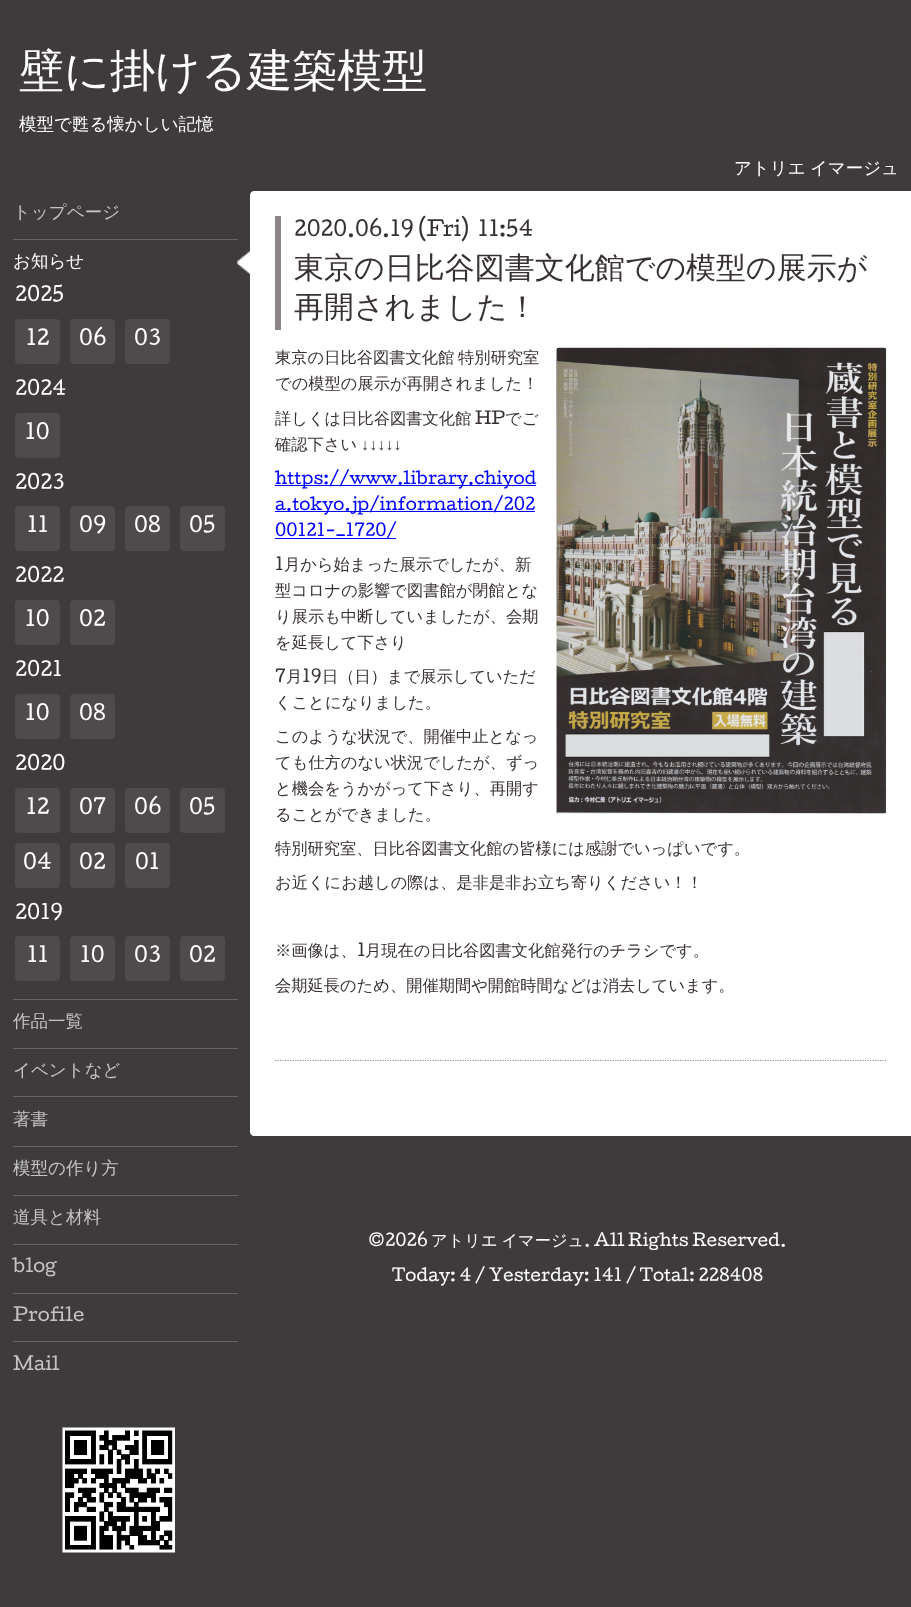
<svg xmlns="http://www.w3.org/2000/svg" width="911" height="1607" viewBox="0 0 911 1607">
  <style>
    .t1 { font: 500 45px WenQuanYi Zen Hei; fill: #fff; }
    .t2 { font: 500 17.5px WenQuanYi Zen Hei; fill: #fff; }
    .t3 { font: 500 17.5px WenQuanYi Zen Hei; fill: #c5c4c4; }
    .t4 { font: 19px Cutive; fill: #fff; }
    .t5 { font: 20px Cutive; fill: #fff; }
    .t6 { font: 17.5px Cutive; fill: #c5c4c4; }
    .t7 { font: 20px Cutive; fill: #383132; }
    .t8 { font: 500 30px WenQuanYi Zen Hei; fill: #383132; }
    .t9 { font: 500 16.25px WenQuanYi Zen Hei; fill: #383132; }
    .t10 { font: 16.25px Cutive; fill: #383132; }
    .t11 { font: 16.25px Liberation Sans; fill: #383132; }
    .t12 { font: 16.25px Cutive; fill: #00f; }
    .t13 { font: 16.25px Cutive; fill: #fff; }
    .t14 { font: 500 16.25px WenQuanYi Zen Hei; fill: #fff; }
  </style>
  <rect width="100%" height="100%" fill="#3f3b3c"/>
  <text x="19" y="86" class="t1">壁に掛ける建築模型</text>
  <text x="19" y="130" class="t2">模型で甦る懐かしい記憶</text>
  <text x="734" y="174" word-spacing="-1" class="t2">アトリエ イマージュ</text>
  <text x="13" y="218" class="t3">トップページ</text>
  <image x="236" y="251" width="14" height="23" href="images/1.png"/>
  <rect x="13" y="239" width="225" height="1" fill="#676464"/>
  <text x="13" y="267" class="t2">お知らせ</text>
  <text x="15" y="301" class="t4">2025</text>
  <rect x="15" y="319" width="45" height="45" rx="4" fill="#4f4a4b"/>
  <text x="26" y="345" class="t5">12</text>
  <rect x="70" y="319" width="45" height="45" rx="4" fill="#4f4a4b"/>
  <text x="79" y="345" class="t5">06</text>
  <rect x="125" y="319" width="45" height="45" rx="4" fill="#4f4a4b"/>
  <text x="134" y="345" class="t5">03</text>
  <text x="15" y="395" class="t4">2024</text>
  <rect x="15" y="413" width="45" height="45" rx="4" fill="#4f4a4b"/>
  <text x="25" y="439" class="t5">10</text>
  <text x="15" y="489" class="t4">2023</text>
  <rect x="15" y="506" width="45" height="45" rx="4" fill="#4f4a4b"/>
  <text x="27" y="532" class="t5">11</text>
  <rect x="70" y="506" width="45" height="45" rx="4" fill="#4f4a4b"/>
  <text x="79" y="532" class="t5">09</text>
  <rect x="125" y="506" width="45" height="45" rx="4" fill="#4f4a4b"/>
  <text x="134" y="532" class="t5">08</text>
  <rect x="180" y="506" width="45" height="45" rx="4" fill="#4f4a4b"/>
  <text x="189" y="532" class="t5">05</text>
  <text x="15" y="582" class="t4">2022</text>
  <rect x="15" y="600" width="45" height="45" rx="4" fill="#4f4a4b"/>
  <text x="25" y="626" class="t5">10</text>
  <rect x="70" y="600" width="45" height="45" rx="4" fill="#4f4a4b"/>
  <text x="79" y="626" class="t5">02</text>
  <text x="15" y="676" class="t4">2021</text>
  <rect x="15" y="694" width="45" height="45" rx="4" fill="#4f4a4b"/>
  <text x="25" y="720" class="t5">10</text>
  <rect x="70" y="694" width="45" height="45" rx="4" fill="#4f4a4b"/>
  <text x="79" y="720" class="t5">08</text>
  <text x="15" y="770" class="t4">2020</text>
  <rect x="15" y="788" width="45" height="45" rx="4" fill="#4f4a4b"/>
  <text x="26" y="814" class="t5">12</text>
  <rect x="70" y="788" width="45" height="45" rx="4" fill="#4f4a4b"/>
  <text x="79" y="814" class="t5">07</text>
  <rect x="125" y="788" width="45" height="45" rx="4" fill="#4f4a4b"/>
  <text x="134" y="814" class="t5">06</text>
  <rect x="180" y="788" width="45" height="45" rx="4" fill="#4f4a4b"/>
  <text x="189" y="814" class="t5">05</text>
  <rect x="15" y="843" width="45" height="45" rx="4" fill="#4f4a4b"/>
  <text x="23" y="869" class="t5">04</text>
  <rect x="70" y="843" width="45" height="45" rx="4" fill="#4f4a4b"/>
  <text x="79" y="869" class="t5">02</text>
  <rect x="125" y="843" width="45" height="45" rx="4" fill="#4f4a4b"/>
  <text x="135" y="869" class="t5">01</text>
  <text x="15" y="919" class="t4">2019</text>
  <rect x="15" y="936" width="45" height="45" rx="4" fill="#4f4a4b"/>
  <text x="27" y="962" class="t5">11</text>
  <rect x="70" y="936" width="45" height="45" rx="4" fill="#4f4a4b"/>
  <text x="80" y="962" class="t5">10</text>
  <rect x="125" y="936" width="45" height="45" rx="4" fill="#4f4a4b"/>
  <text x="134" y="962" class="t5">03</text>
  <rect x="180" y="936" width="45" height="45" rx="4" fill="#4f4a4b"/>
  <text x="189" y="962" class="t5">02</text>
  <rect x="13" y="999" width="225" height="1" fill="#676464"/>
  <text x="13" y="1027" class="t3">作品一覧</text>
  <rect x="13" y="1048" width="225" height="1" fill="#676464"/>
  <text x="13" y="1076" class="t3">イベントなど</text>
  <rect x="13" y="1096" width="225" height="1" fill="#676464"/>
  <text x="13" y="1125" class="t3">著書</text>
  <rect x="13" y="1146" width="225" height="1" fill="#676464"/>
  <text x="13" y="1174" class="t3">模型の作り方</text>
  <rect x="13" y="1195" width="225" height="1" fill="#676464"/>
  <text x="13" y="1223" class="t3">道具と材料</text>
  <rect x="13" y="1244" width="225" height="1" fill="#676464"/>
  <text x="13" y="1272" class="t6">blog</text>
  <rect x="13" y="1293" width="225" height="1" fill="#676464"/>
  <text x="13" y="1321" class="t6">Profile</text>
  <rect x="13" y="1341" width="225" height="1" fill="#676464"/>
  <text x="13" y="1370" class="t6">Mail</text>
  <image x="62" y="1427" width="113" height="126" href="images/2.png"/>
  <path d="M254 191H911V1136H254C252 1136 250 1134 250 1132V195C250 193 252 191 254 191Z" fill="#fff"/>
  <path d="M275 1060.5H886" fill="none" stroke="#8d8688" stroke-width="1.2" stroke-dasharray="1.25 1.25"/>
  <rect x="275" y="216" width="6" height="114" fill="#8d8688"/>
  <text x="294" y="236" class="t7" xml:space="preserve">2020.06.19 (Fri)  11:54</text>
  <text x="294" y="278" class="t8">東京の日比谷図書文化館での模型の展示が</text>
  <text x="294" y="317" class="t8">再開されました！</text>
  <image x="556" y="347" width="331" height="467" href="images/3.png"/>
  <text x="275" y="363" word-spacing="-1" class="t9">東京の日比谷図書文化館 特別研究室</text>
  <text x="275" y="389" class="t9">での模型の展示が再開されました！</text>
  <text x="275" y="424" class="t9">詳しくは日比谷図書文化館</text>
  <text x="475" y="424" class="t10">HP</text>
  <text x="505" y="424" class="t9">でご</text>
  <text x="275" y="450" class="t9">確認下さい</text>
  <text x="361" y="450" class="t11">↓↓↓↓↓</text>
  <rect x="275" y="485" width="261" height="1" fill="#00f"/>
  <text x="275" y="484" class="t12">https://www.library.chiyod</text>
  <rect x="275" y="511" width="260" height="1" fill="#00f"/>
  <text x="275" y="510" class="t12">a.tokyo.jp/information/202</text>
  <rect x="275" y="538" width="121" height="1" fill="#00f"/>
  <text x="275" y="536" class="t12">00121-_1720/</text>
  <text x="275" y="570" class="t10">1</text>
  <text x="284" y="570" class="t9">月から始まった展示でしたが、新</text>
  <text x="275" y="596" class="t9">型コロナの影響で図書館が閉館とな</text>
  <text x="275" y="622" class="t9">り展示も中断していましたが、会期</text>
  <text x="275" y="648" class="t9">を延長して下さり</text>
  <text x="275" y="682" class="t10">7</text>
  <text x="286" y="682" class="t9">月</text>
  <text x="302" y="682" class="t10">19</text>
  <text x="322" y="682" class="t9">日（日）まで展示していただ</text>
  <text x="275" y="708" class="t9">くことになりました。</text>
  <text x="275" y="742" class="t9">このような状況で、開催中止となっ</text>
  <text x="275" y="768" class="t9">ても仕方のない状況でしたが、ずっ</text>
  <text x="275" y="794" class="t9">と機会をうかがって下さり、再開す</text>
  <text x="275" y="820" class="t9">ることができました。</text>
  <text x="275" y="854" class="t9">特別研究室、日比谷図書文化館の皆様には感謝でいっぱいです。</text>
  <text x="275" y="888" class="t9">お近くにお越しの際は、是非是非お立ち寄りください！！</text>
  <text x="275" y="956" class="t9">※画像は、</text>
  <text x="357" y="956" class="t10">1</text>
  <text x="365" y="956" class="t9">月現在の日比谷図書文化館発行のチラシです。</text>
  <text x="275" y="991" class="t9">会期延長のため、開催期間や開館時間などは消去しています。</text>
  <text x="368" y="1246" class="t13">©2026</text>
  <text x="431" y="1246" word-spacing="-1" class="t14">アトリエ イマージュ</text>
  <text x="584" y="1246" class="t13">. All Rights Reserved.</text>
  <text x="392" y="1281" class="t13">Today: 4 / Yesterday: 141 / Total: 228408</text>
</svg>
